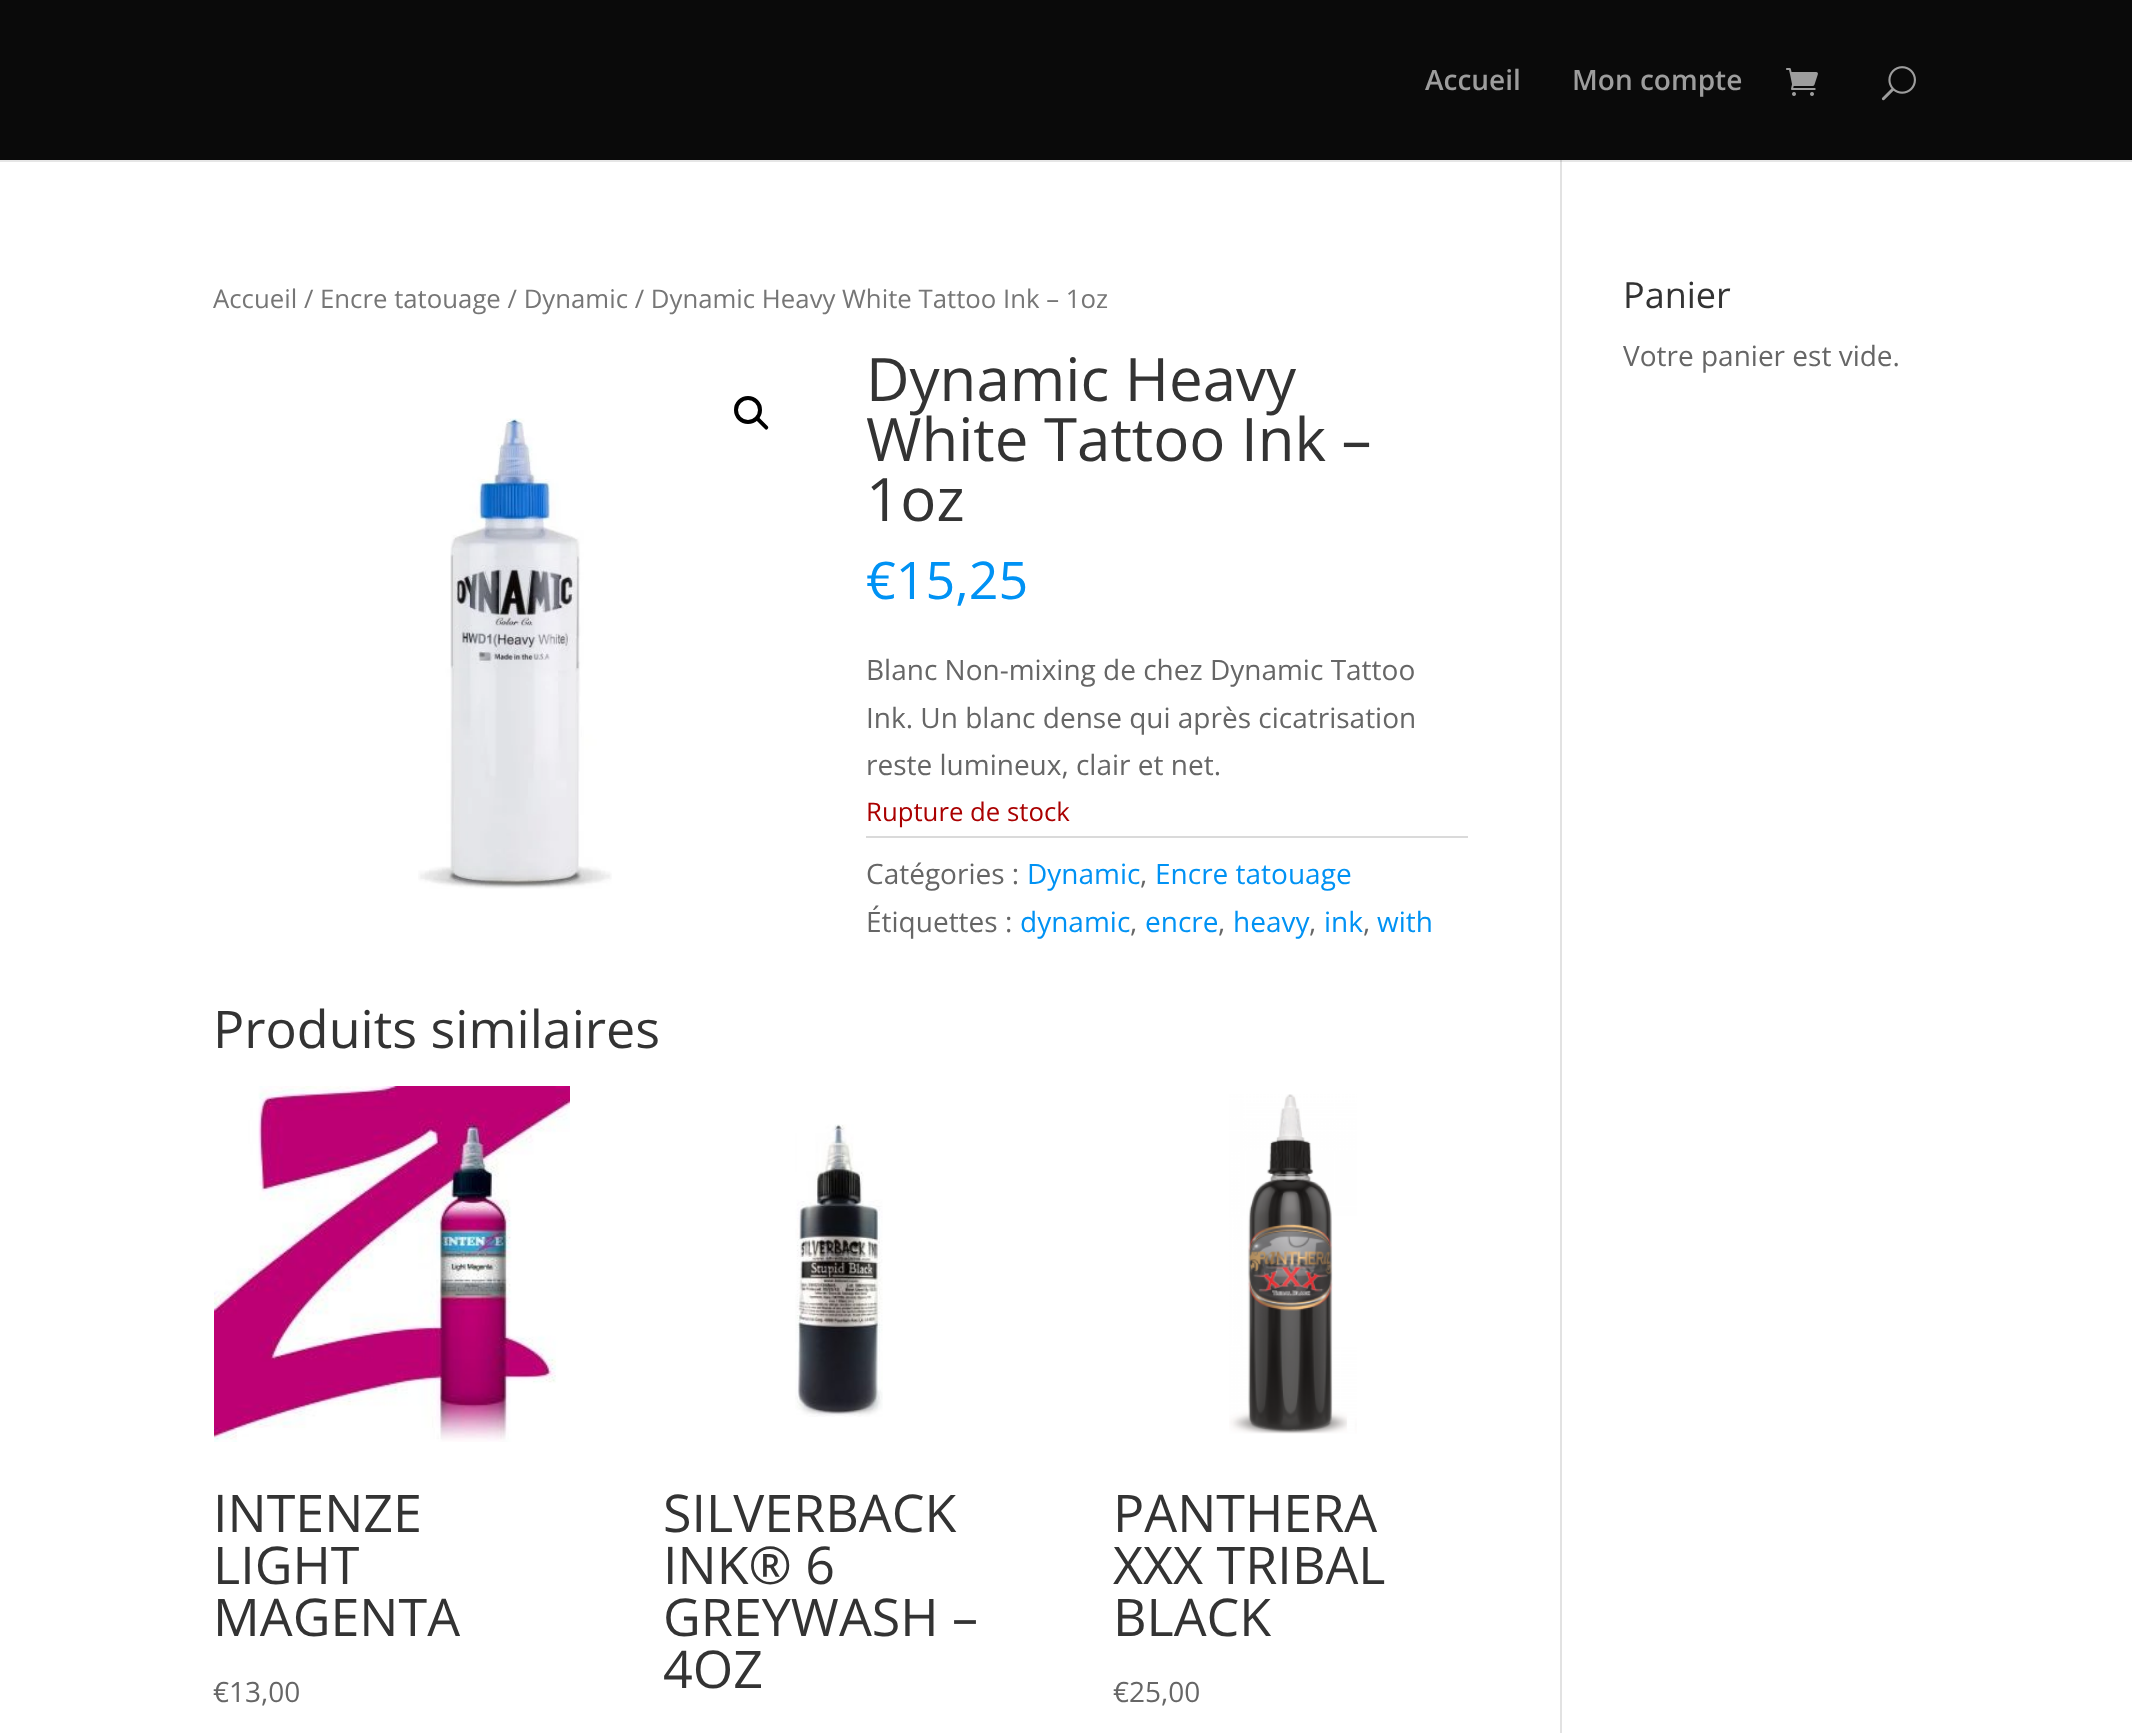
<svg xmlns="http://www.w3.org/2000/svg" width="2132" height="1733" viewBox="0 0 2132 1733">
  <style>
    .t1 { font: 600 28px Open Sans; fill: #9d9d9d; }
    .t2 { font: 25.75px Open Sans; fill: #767676; }
    .t3 { font: 60px Open Sans; fill: #333; }
    .t4 { font: 52px Open Sans; fill: #0092f4; }
    .t5 { font: 28px Open Sans; fill: #666; }
    .t6 { font: 25.75px Open Sans; fill: #a00; }
    .t7 { font: 28px Open Sans; fill: #0092f4; }
    .t8 { font: 52px Open Sans; fill: #333; }
    .t9 { font: 36px Open Sans; fill: #333; }
  </style>
  <rect width="100%" height="100%" fill="#fff"/>
  <rect x="0" y="0" width="2132" height="160" fill="#0a0a0a"/>
  <text x="1425" y="90" class="t1">Accueil</text>
  <text x="1572" y="90" class="t1">Mon compte</text>
  <image x="1786" y="68" width="32" height="28" href="images/1.png"/>
  <image x="1881" y="66" width="35" height="35" href="images/2.png"/>
  <rect x="0" y="160" width="2132" height="2" fill="#e6e6e6"/>
  <rect x="1560" y="160" width="2" height="1573" fill="#e2e2e2"/>
  <rect x="1560" y="160" width="2" height="2" fill="#cbcbcb"/>
  <text x="213" y="308" class="t2">Accueil / Encre tatouage / Dynamic / Dynamic Heavy White Tattoo Ink – 1oz</text>
  <circle cx="748" cy="410" r="12" fill="none" stroke="#000" stroke-width="4"/>
  <path d="M756.5 417.5C757 417 758.5 417 759 417.5L767.5 426C768.5 427 768.5 428 767.5 429C767 430 765.5 430 765 429L756.5 420.5C755.5 419.5 755.5 418.5 756.5 417.5Z" fill="#000"/>
  <image x="418" y="418" width="194" height="471" href="images/3.png"/>
  <text x="866" y="401" class="t3">Dynamic Heavy</text>
  <text x="866" y="461" class="t3">White Tattoo Ink –</text>
  <text x="866" y="521" class="t3">1oz</text>
  <text x="866" y="599" class="t4">€15,25</text>
  <text x="866" y="680" class="t5">Blanc Non-mixing de chez Dynamic Tattoo</text>
  <text x="866" y="728" class="t5">Ink. Un blanc dense qui après cicatrisation</text>
  <text x="866" y="775" class="t5">reste lumineux, clair et net.</text>
  <text x="866" y="821" class="t6">Rupture de stock</text>
  <rect x="866" y="836" width="602" height="2" fill="#dadada"/>
  <text x="866" y="884" class="t5">Catégories :</text>
  <text x="1027" y="884" class="t7">Dynamic</text>
  <text x="1140" y="884" class="t5">,</text>
  <text x="1155" y="884" class="t7">Encre tatouage</text>
  <text x="866" y="932" class="t5">Étiquettes :</text>
  <text x="1020" y="932" class="t7">dynamic</text>
  <text x="1130" y="932" class="t5">,</text>
  <text x="1145" y="932" class="t7">encre</text>
  <text x="1218" y="932" class="t5">,</text>
  <text x="1233" y="932" class="t7">heavy</text>
  <text x="1309" y="932" class="t5">,</text>
  <text x="1324" y="932" class="t7">ink</text>
  <text x="1363" y="932" class="t5">,</text>
  <text x="1377" y="932" class="t7">with</text>
  <text x="213" y="1048" class="t8">Produits similaires</text>
  <image x="214" y="1086" width="356" height="356" href="images/4.png"/>
  <text x="213" y="1532" class="t8">INTENZE</text>
  <text x="213" y="1584" class="t8">LIGHT</text>
  <text x="213" y="1636" class="t8">MAGENTA</text>
  <text x="213" y="1702" class="t5">€13,00</text>
  <image x="795" y="1124" width="88" height="293" href="images/5.png"/>
  <text x="663" y="1532" class="t8">SILVERBACK</text>
  <text x="663" y="1584" class="t8">INK® 6</text>
  <text x="663" y="1636" class="t8">GREYWASH –</text>
  <text x="663" y="1688" class="t8">4OZ</text>
  <image x="1229" y="1094" width="128" height="340" href="images/6.png"/>
  <text x="1113" y="1532" class="t8">PANTHERA</text>
  <text x="1113" y="1584" class="t8">XXX TRIBAL</text>
  <text x="1113" y="1636" class="t8">BLACK</text>
  <text x="1113" y="1702" class="t5">€25,00</text>
  <text x="1623" y="308" class="t9">Panier</text>
  <text x="1623" y="366" class="t5">Votre panier est vide.</text>
</svg>
